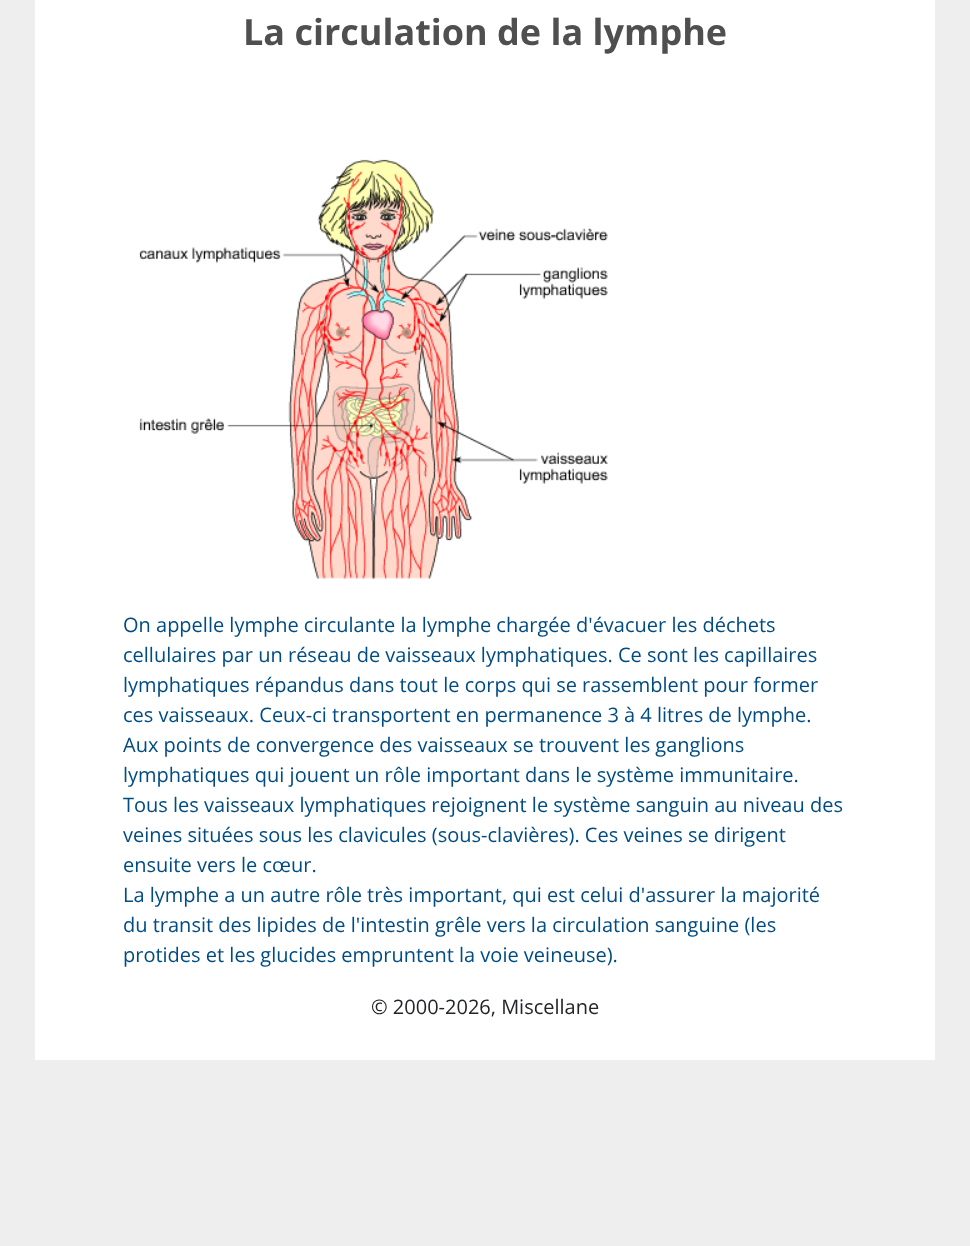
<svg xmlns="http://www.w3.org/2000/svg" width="970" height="1246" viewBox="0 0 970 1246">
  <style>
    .t1 { font: bold 36px Open Sans; fill: #4f4f4f; }
    .t2 { font: 20px Open Sans; fill: #004c82; }
    .t3 { font: 20px Open Sans; fill: #212529; }
  </style>
  <rect width="100%" height="100%" fill="#eee"/>
  <rect x="35" y="0" width="900" height="1060" fill="#fff"/>
  <text x="243" y="45" class="t1">La circulation de la lymphe</text>
  <image x="139" y="159" width="469" height="420" href="images/1.png"/>
  <text x="123" y="632" class="t2">On appelle lymphe circulante la lymphe chargée d'évacuer les déchets</text>
  <text x="123" y="662" class="t2">cellulaires par un réseau de vaisseaux lymphatiques. Ce sont les capillaires</text>
  <text x="123" y="692" class="t2">lymphatiques répandus dans tout le corps qui se rassemblent pour former</text>
  <text x="123" y="722" class="t2">ces vaisseaux. Ceux-ci transportent en permanence 3 à 4 litres de lymphe.</text>
  <text x="123" y="752" class="t2">Aux points de convergence des vaisseaux se trouvent les ganglions</text>
  <text x="123" y="782" class="t2">lymphatiques qui jouent un rôle important dans le système immunitaire.</text>
  <text x="123" y="812" class="t2">Tous les vaisseaux lymphatiques rejoignent le système sanguin au niveau des</text>
  <text x="123" y="842" class="t2">veines situées sous les clavicules (sous-clavières). Ces veines se dirigent</text>
  <text x="123" y="872" class="t2">ensuite vers le cœur.</text>
  <text x="123" y="902" class="t2">La lymphe a un autre rôle très important, qui est celui d'assurer la majorité</text>
  <text x="123" y="932" class="t2">du transit des lipides de l'intestin grêle vers la circulation sanguine (les</text>
  <text x="123" y="962" class="t2">protides et les glucides empruntent la voie veineuse).</text>
  <text x="371" y="1014" class="t3">© 2000-2026, Miscellane</text>
</svg>
